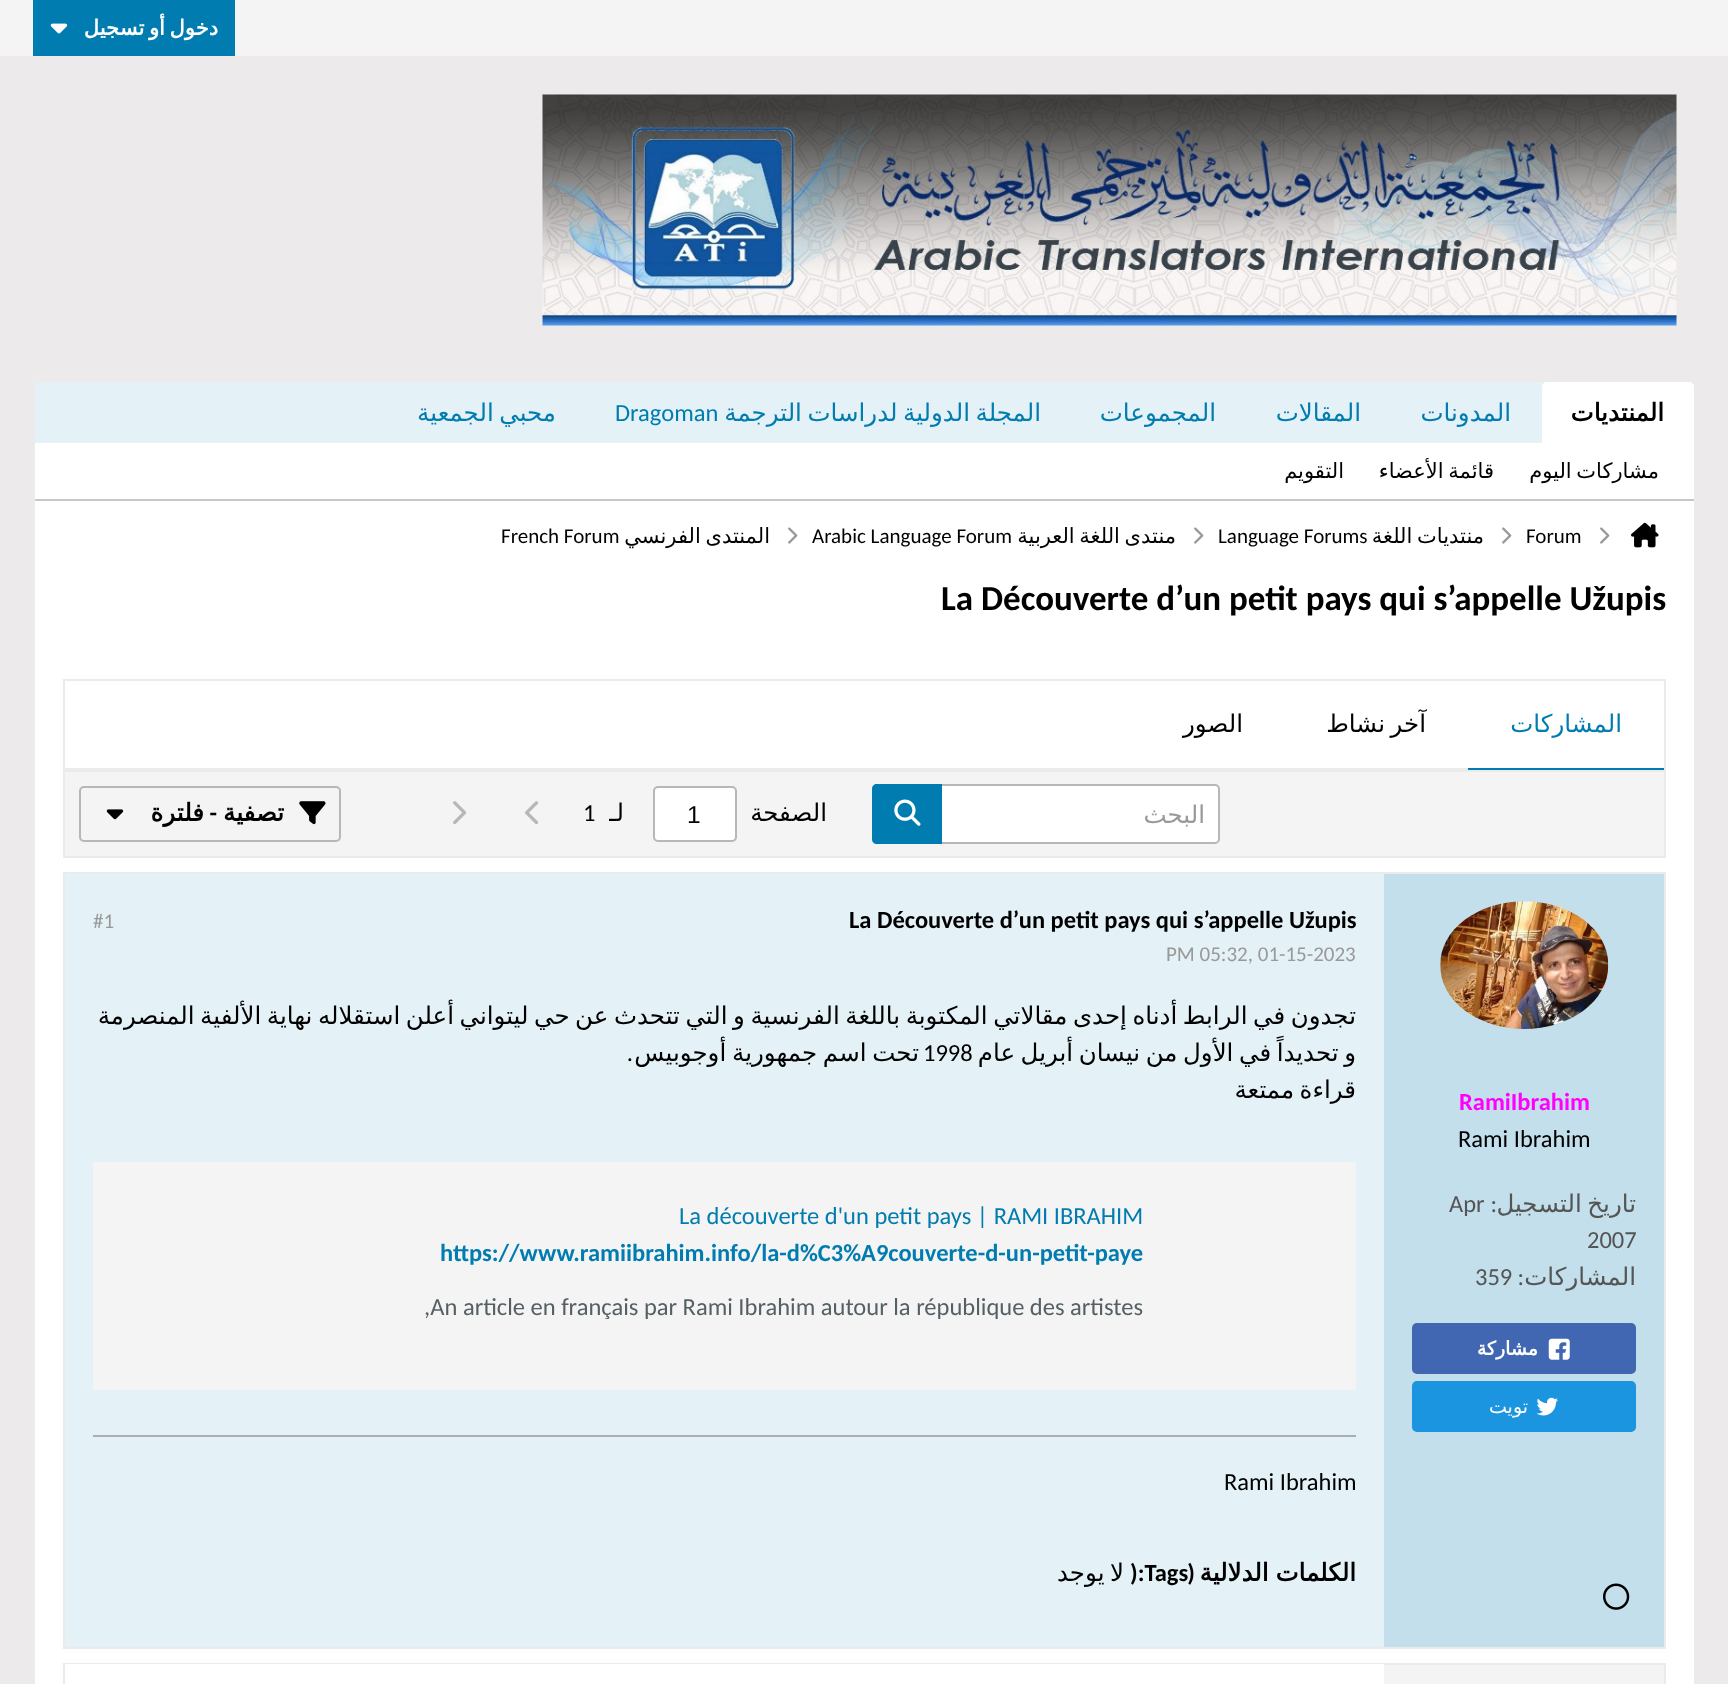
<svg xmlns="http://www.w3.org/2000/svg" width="1728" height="1684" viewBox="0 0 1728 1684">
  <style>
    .t1 { font: bold 21px DejaVu Sans; direction: rtl; fill: #fff; }
    .t2 { font: bold 24.5px DejaVu Sans; direction: rtl; fill: #000; }
    .t3 { font: 24.5px DejaVu Sans; direction: rtl; fill: #007cb0; }
    .t4 { font: 24.5px Carlito; fill: #007cb0; }
    .t5 { font: 21px DejaVu Sans; direction: rtl; fill: #000; }
    .t6 { font: 21px Carlito; fill: #000; }
    .t7 { font: bold 35px Carlito; fill: #000; }
    .t8 { font: 24.5px DejaVu Sans; direction: rtl; fill: #000; }
    .t9 { font: 24.5px DejaVu Sans; direction: rtl; fill: #999; }
    .t10 { font: 24.5px Liberation Sans; fill: #000; }
    .t11 { font: 24.5px Carlito; fill: #000; }
    .t12 { font: bold 24.5px Carlito; direction: rtl; fill: #000; }
    .t13 { font: bold 24.5px Carlito; fill: #f0f; }
    .t14 { font: 24.5px DejaVu Sans; direction: rtl; fill: #555; }
    .t15 { font: 24.5px Carlito; direction: rtl; fill: #555; }
    .t16 { font: 24.5px Carlito; fill: #555; }
    .t17 { font: bold 19px DejaVu Sans; direction: rtl; fill: #fff; }
    .t18 { font: 19px DejaVu Sans; direction: rtl; fill: #fff; }
    .t19 { font: bold 24.5px Carlito; fill: #000; }
    .t20 { font: 21px Carlito; fill: #999; }
    .t21 { font: 24.5px Carlito; direction: rtl; fill: #000; }
    .t22 { font: bold 24.5px Carlito; fill: #007cb0; }
    .t23 { font: 24.5px Carlito; fill: #556065; }
  </style>
  <rect width="100%" height="100%" fill="#eceaea"/>
  <rect x="0" y="0" width="1728" height="56" fill="#f5f4f4"/>
  <rect x="33" y="0" width="202" height="56" fill="#007cb0"/>
  <text x="218" y="35" word-spacing="-2" class="t1">دخول أو تسجيل</text>
  <image x="50" y="23" width="18" height="11" href="images/1.png"/>
  <image x="542" y="94" width="1135" height="232" href="images/2.png"/>
  <path d="M40 382H1689C1692 382 1694 384 1694 387V443H35V387C35 384 37 382 40 382Z" fill="#e4f1f6"/>
  <path d="M1547 382H1689C1692 382 1694 384 1694 387V443H1542V387C1542 384 1544 382 1547 382Z" fill="#fff"/>
  <text x="1664" y="421" class="t2">المنتديات</text>
  <text x="1511" y="421" class="t3">المدونات</text>
  <text x="1361" y="421" class="t3">المقالات</text>
  <text x="1216" y="421" class="t3">المجموعات</text>
  <text x="1041" y="421" word-spacing="-2.25" class="t3">المجلة الدولية لدراسات الترجمة</text>
  <text x="615" y="421" class="t4">Dragoman</text>
  <text x="556" y="421" word-spacing="-2.25" class="t3">محبي الجمعية</text>
  <rect x="35" y="443" width="1659" height="56" fill="#fff"/>
  <rect x="35" y="499" width="1659" height="2" fill="#c7c7c8"/>
  <text x="1659" y="478" word-spacing="-2" class="t5">مشاركات اليوم</text>
  <text x="1494" y="478" word-spacing="-2" class="t5">قائمة الأعضاء</text>
  <text x="1344" y="478" class="t5">التقويم</text>
  <rect x="35" y="501" width="1659" height="1183" fill="#fff"/>
  <image x="1631" y="522" width="28" height="26" href="images/3.png"/>
  <image x="1600" y="527" width="10" height="17" href="images/4.png"/>
  <text x="1526" y="543" class="t6">Forum</text>
  <image x="1502" y="527" width="10" height="17" href="images/4.png"/>
  <text x="1484" y="543" word-spacing="-2" class="t5">منتديات اللغة</text>
  <text x="1218" y="543" class="t6">Language Forums</text>
  <image x="1194" y="527" width="10" height="17" href="images/4.png"/>
  <text x="1176" y="543" word-spacing="-2" class="t5">منتدى اللغة العربية</text>
  <text x="812" y="543" class="t6">Arabic Language Forum</text>
  <image x="788" y="527" width="10" height="17" href="images/4.png"/>
  <text x="770" y="543" word-spacing="-2" class="t5">المنتدى الفرنسي</text>
  <text x="501" y="543" class="t6">French Forum</text>
  <text x="941" y="610" class="t7">La Découverte d’un petit pays qui s’appelle Užupis</text>
  <rect x="63" y="679" width="1603" height="2" fill="#eceaea"/>
  <rect x="1664" y="679" width="2" height="93" fill="#eceaea"/>
  <rect x="63" y="768" width="1603" height="2" fill="#eceaea"/>
  <rect x="63" y="679" width="2" height="93" fill="#eceaea"/>
  <rect x="1468" y="768" width="196" height="2" fill="#007cb0"/>
  <text x="1622" y="732" class="t3">المشاركات</text>
  <text x="1426" y="732" word-spacing="-2.25" class="t8">آخر نشاط</text>
  <text x="1243" y="732" class="t8">الصور</text>
  <rect x="64" y="771" width="1601" height="86" fill="#f5f4f4" stroke="#eceaea" stroke-width="2"/>
  <rect x="873" y="785" width="346" height="58" rx="4" fill="#fff" stroke="#b7b7b7" stroke-width="2"/>
  <text x="1205" y="823" class="t9">البحث</text>
  <path d="M877 784H942V844H877C874 844 872 842 872 839V789C872 786 874 784 877 784Z" fill="#007cb0"/>
  <image x="894" y="799" width="27" height="27" href="images/5.png"/>
  <text x="827" y="821" class="t8">الصفحة</text>
  <rect x="654" y="787" width="82" height="54" rx="4" fill="#fff" stroke="#b7b7b7" stroke-width="2"/>
  <text x="687" y="823" class="t10">1</text>
  <text x="624" y="821" class="t8">لـ</text>
  <text x="583" y="821" class="t11">1</text>
  <image x="525" y="801" width="14" height="24" href="images/6.png"/>
  <image x="453" y="801" width="14" height="24" href="images/7.png"/>
  <rect x="80" y="787" width="260" height="54" rx="4" fill="none" stroke="#b7b7b7" stroke-width="2"/>
  <image x="299" y="801" width="27" height="24" href="images/8.png"/>
  <text x="284" y="821" class="t2">تصفية</text>
  <text x="217" y="821" class="t12">-</text>
  <text x="204" y="821" class="t2">فلترة</text>
  <image x="106" y="809" width="18" height="11" href="images/9.png"/>
  <rect x="1384" y="874" width="280" height="773" fill="#c2dfeb"/>
  <rect x="64" y="873" width="1601" height="775" fill="none" stroke="#eceaea" stroke-width="2"/>
  <image x="1440" y="901" width="169" height="128" href="images/10.png"/>
  <text x="1459" y="1110" class="t13">RamiIbrahim</text>
  <text x="1458" y="1147" class="t11">Rami Ibrahim</text>
  <text x="1636" y="1212" word-spacing="-2.25" class="t14">تاريخ التسجيل</text>
  <text x="1497" y="1212" class="t15">:</text>
  <text x="1449" y="1212" class="t16">Apr</text>
  <text x="1587" y="1248" class="t16">2007</text>
  <text x="1636" y="1285" class="t14">المشاركات</text>
  <text x="1524" y="1285" class="t15">:</text>
  <text x="1475" y="1285" class="t16">359</text>
  <rect x="1412" y="1323" width="224" height="51" rx="5" fill="#4267b2"/>
  <image x="1548" y="1338" width="22" height="22" href="images/11.png"/>
  <text x="1538" y="1355" class="t17">مشاركة</text>
  <rect x="1412" y="1381" width="224" height="51" rx="5" fill="#1b95e0"/>
  <image x="1536" y="1397" width="22" height="19" href="images/12.png"/>
  <text x="1528" y="1413" class="t18">تويت</text>
  <image x="1603" y="1583" width="27" height="27" href="images/13.png"/>
  <rect x="65" y="873" width="1319" height="774" fill="#e4f1f6"/>
  <text x="849" y="928" class="t19">La Découverte d’un petit pays qui s’appelle Užupis</text>
  <text x="1166" y="961" class="t20">PM 05:32, 01-15-2023</text>
  <text x="93" y="928" class="t20">#1</text>
  <text x="1356" y="1024" word-spacing="-2.25" class="t8">تجدون في الرابط أدناه إحدى مقالاتي المكتوبة باللغة الفرنسية و التي تتحدث عن حي ليتواني أعلن استقلاله نهاية الألفية المنصرمة</text>
  <text x="1356" y="1061" word-spacing="-2.25" class="t8">و تحديداً في الأول من نيسان أبريل عام</text>
  <text x="923" y="1061" class="t11">1998</text>
  <text x="919" y="1061" word-spacing="-2" class="t8">تحت اسم جمهورية أوجوبيس</text>
  <text x="633" y="1061" class="t21">.</text>
  <text x="1356" y="1098" word-spacing="-2.25" class="t8">قراءة ممتعة</text>
  <rect x="93" y="1162" width="1263" height="228" fill="#f5f4f4"/>
  <text x="679" y="1224" class="t4">La découverte d'un petit pays | RAMI IBRAHIM</text>
  <text x="440" y="1261" class="t22">https://www.ramiibrahim.info/la-d%C3%A9couverte-d-un-petit-paye</text>
  <text x="424" y="1315" class="t23">,An article en français par Rami Ibrahim autour la république des artistes</text>
  <rect x="93" y="1435" width="1263" height="2" fill="#abaeb0"/>
  <text x="1224" y="1490" class="t11">Rami Ibrahim</text>
  <text x="1356" y="1581" word-spacing="-1" class="t2">الكلمات الدلالية</text>
  <text x="1195" y="1581" class="t12">(</text>
  <text x="1130" y="1581" class="t19">):Tags</text>
  <text x="1124" y="1581" word-spacing="-2.25" class="t8">لا يوجد</text>
  <rect x="1384" y="1665" width="280" height="19" fill="#f5f4f4"/>
  <rect x="64" y="1664" width="1601" height="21" fill="none" stroke="#eceaea" stroke-width="2"/>
  <rect x="65" y="1664" width="1319" height="1" fill="#fff"/>
</svg>
